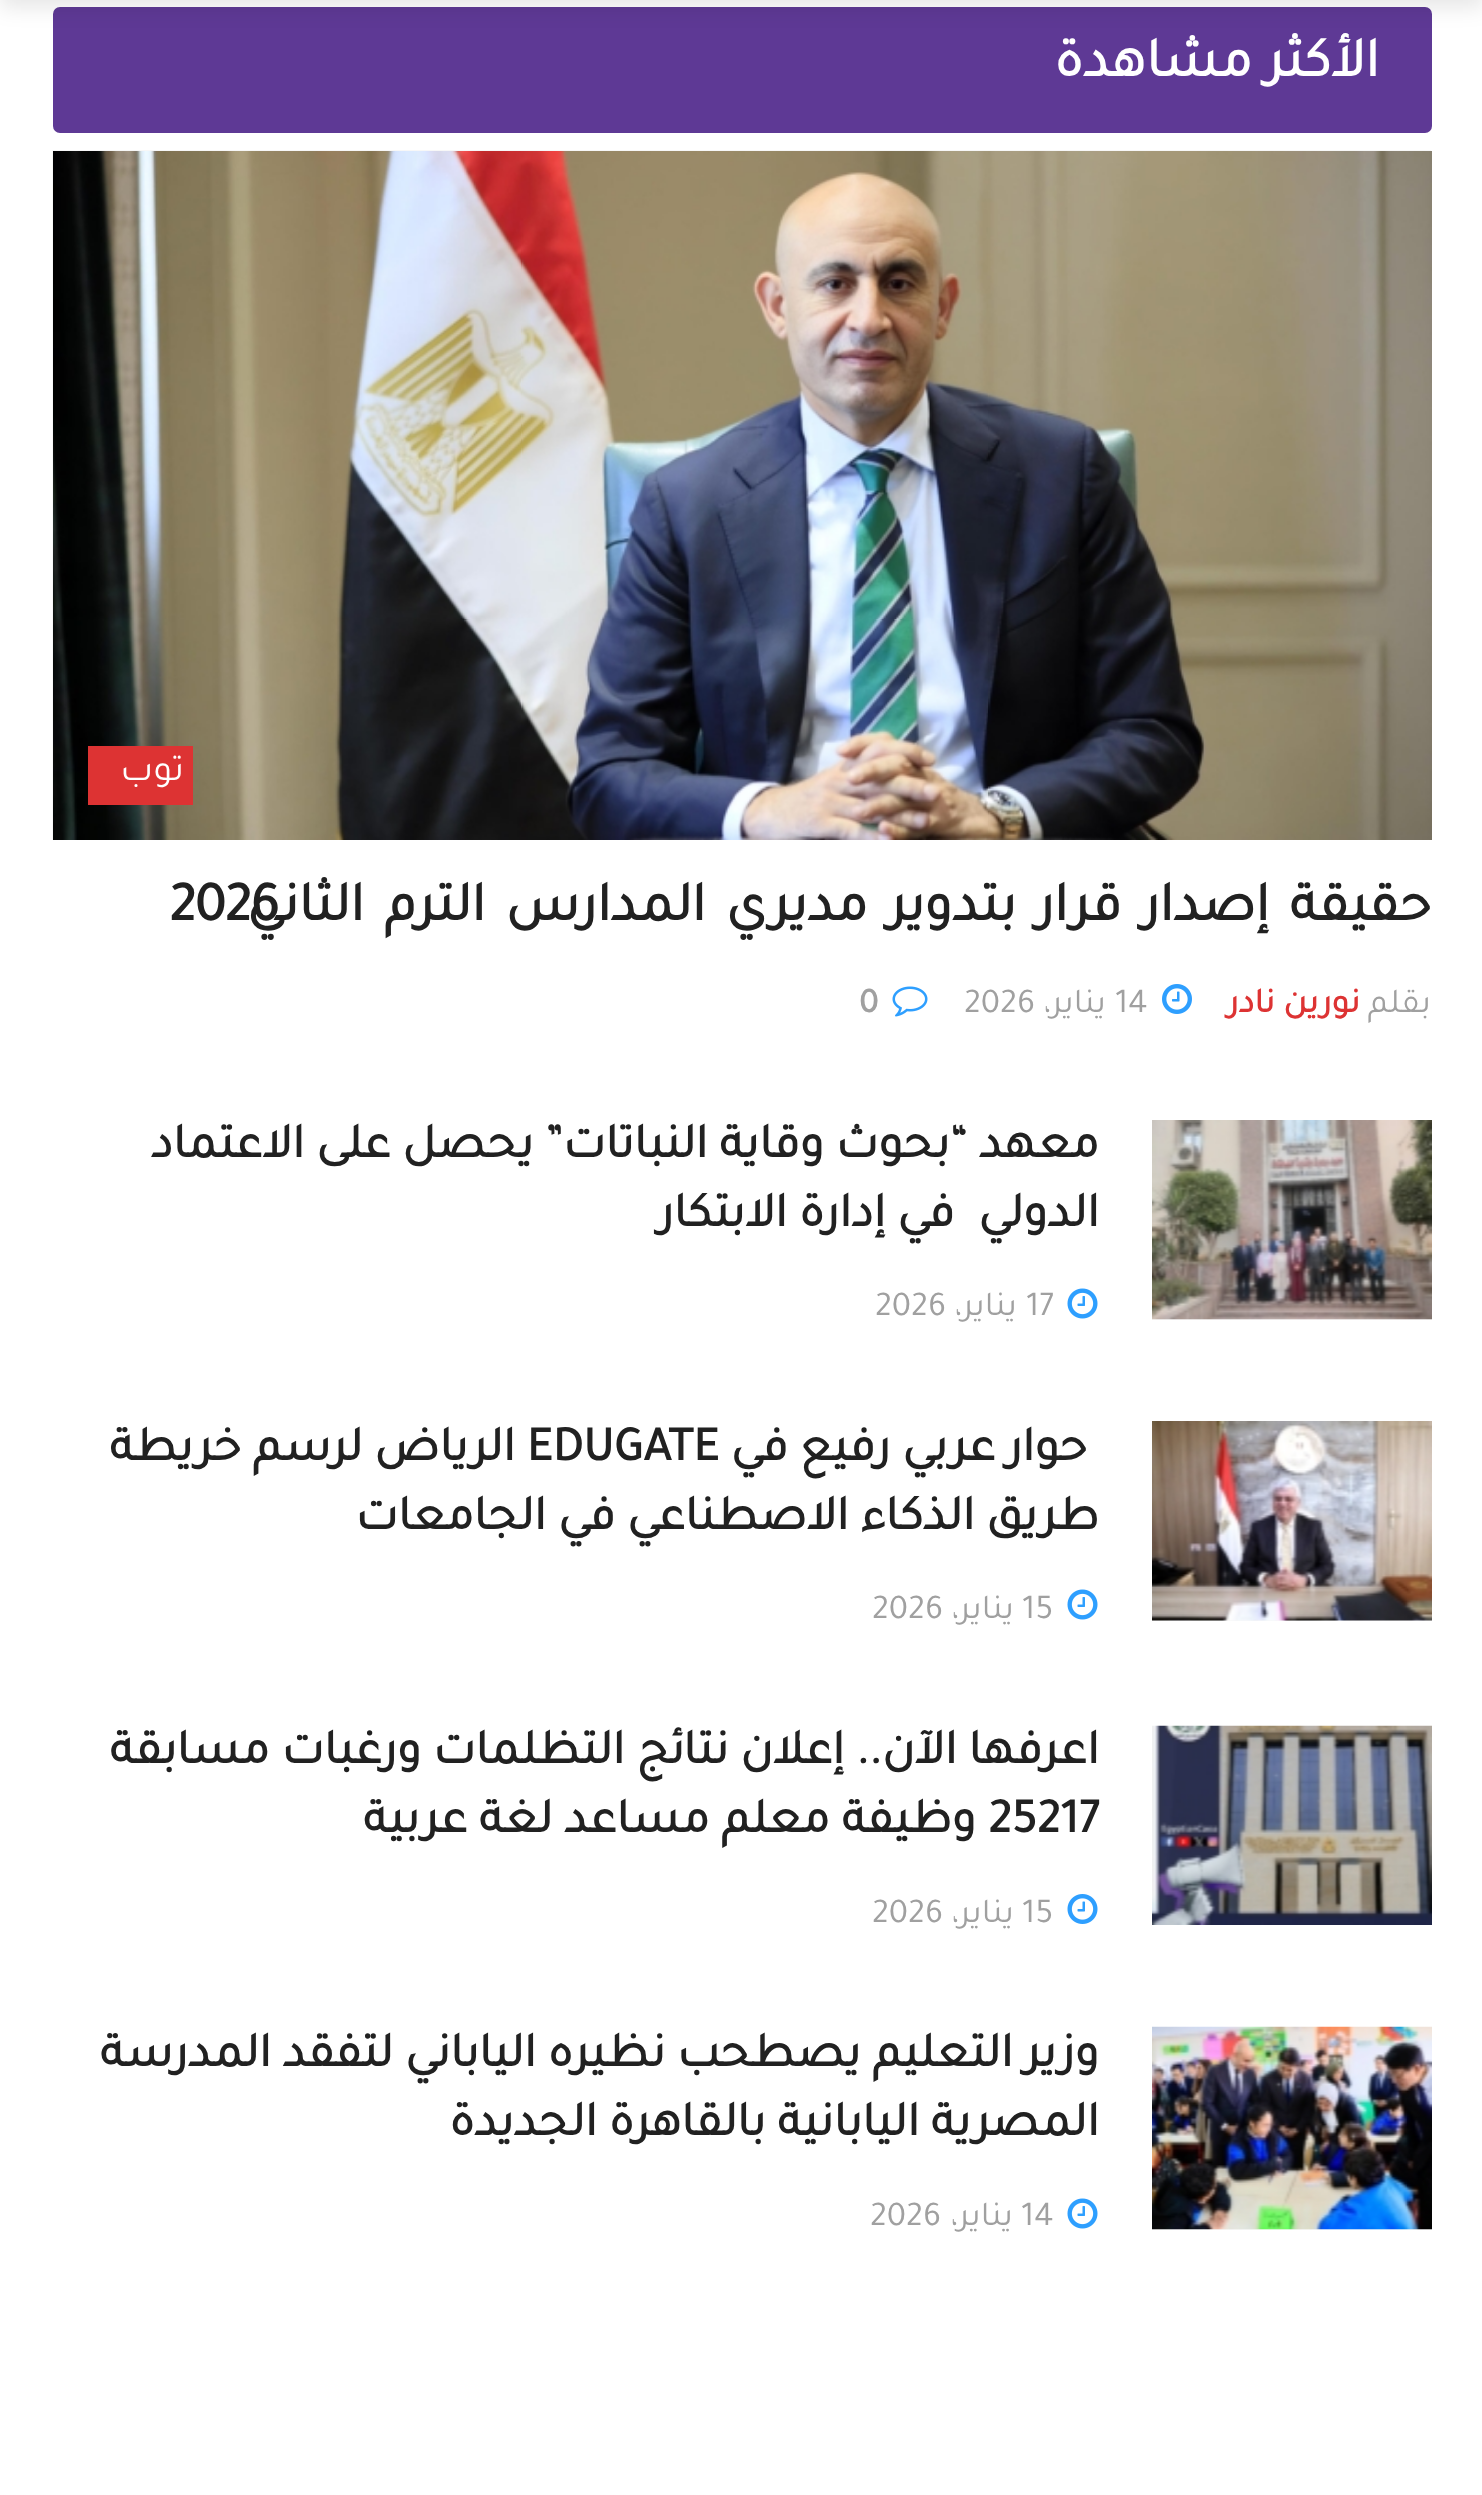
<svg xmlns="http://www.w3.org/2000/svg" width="1482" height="2495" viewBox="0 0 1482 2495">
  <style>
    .t1 { font: bold 56px Tajawal; direction: rtl; fill: #fff; }
    .t2 { font: 38px Tajawal; letter-spacing: 3.5px; direction: rtl; fill: #fff; }
    .t3 { font: bold 56px Tajawal; letter-spacing: -1.12px; direction: rtl; fill: #212121; }
    .t4 { font: bold 56px Tajawal; letter-spacing: -1.12px; fill: #212121; }
    .t5 { font: 35px Tajawal; direction: rtl; fill: #a0a0a0; }
    .t6 { font: bold 35px Tajawal; direction: rtl; fill: #d33; }
    .t7 { font: 35px Tajawal; fill: #a0a0a0; }
    .t8 { font: bold 35px Tajawal; fill: #a0a0a0; }
    .t9 { font: bold 49px Tajawal; direction: rtl; fill: #212121; }
    .t10 { font: bold 49px Tajawal; fill: #212121; }
  </style>
  <rect width="100%" height="100%" fill="#fff"/>
  <rect x="53" y="7" width="1379" height="126" rx="7" fill="#5e3995"/>
  <rect x="0" y="-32" width="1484" height="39" fill="#0000001a" filter="blur(10.5px)"/>
  <text x="1379" y="76" class="t1">الأكثر مشاهدة</text>
  <rect x="52" y="150" width="1379" height="690" fill="#f7f7f7"/>
  <image x="53" y="151" width="1379" height="689" href="images/1.png"/>
  <rect x="88" y="746" width="105" height="59" fill="#d33"/>
  <text x="184" y="780" class="t2">توب</text>
  <text x="1431" y="920" word-spacing="7" class="t3">حقيقة إصدار قرار بتدوير مديري المدارس الترم الثاني</text>
  <text x="169" y="920" class="t4">2026</text>
  <text x="1431" y="1012" class="t5">بقلم</text>
  <text x="1360" y="1012" class="t6">نورين نادر</text>
  <image x="1162" y="984" width="30" height="30" href="images/2.png"/>
  <text x="1115" y="1012" class="t7">14</text>
  <text x="1106" y="1012" class="t5">يناير،</text>
  <text x="964" y="1012" class="t7">2026</text>
  <image x="892" y="986" width="36" height="31" href="images/3.png"/>
  <text x="859" y="1012" class="t8">0</text>
  <rect x="1152" y="1319" width="280" height="1" fill="#f7f7f7"/>
  <image x="1152" y="1120" width="280" height="200" href="images/4.png"/>
  <text x="1099" y="1157" class="t9">معهد “بحوث وقاية النباتات” يحصل على الاعتماد</text>
  <text x="1099" y="1226" class="t9" xml:space="preserve">الدولي  في إدارة الابتكار</text>
  <image x="1067" y="1288" width="31" height="31" href="images/5.png"/>
  <text x="1026" y="1315" class="t7">17</text>
  <text x="1017" y="1315" class="t5">يناير،</text>
  <text x="875" y="1315" class="t7">2026</text>
  <rect x="1152" y="1620" width="280" height="1" fill="#f7f7f7"/>
  <image x="1152" y="1421" width="280" height="200" href="images/6.png"/>
  <text x="1087" y="1460" class="t9">حوار عربي رفيع في</text>
  <text x="527" y="1460" class="t10">EDUGATE</text>
  <text x="515" y="1460" class="t9">الرياض لرسم خريطة</text>
  <text x="1099" y="1529" class="t9">طريق الذكاء الاصطناعي في الجامعات</text>
  <image x="1067" y="1589" width="31" height="31" href="images/5.png"/>
  <text x="1022" y="1618" class="t7">15</text>
  <text x="1014" y="1618" class="t5">يناير،</text>
  <text x="872" y="1618" class="t7">2026</text>
  <image x="1152" y="1725" width="280" height="200" href="images/7.png"/>
  <text x="1099" y="1763" class="t9">اعرفها الآن.. إعلان نتائج التظلمات ورغبات مسابقة</text>
  <text x="988" y="1832" class="t10">25217</text>
  <text x="976" y="1832" class="t9">وظيفة معلم مساعد لغة عربية</text>
  <image x="1067" y="1894" width="31" height="30" href="images/8.png"/>
  <text x="1022" y="1922" class="t7">15</text>
  <text x="1014" y="1922" class="t5">يناير،</text>
  <text x="872" y="1922" class="t7">2026</text>
  <rect x="1152" y="2229" width="280" height="1" fill="#f7f7f7"/>
  <image x="1152" y="2026" width="280" height="204" href="images/9.png"/>
  <text x="1099" y="2066" class="t9">وزير التعليم يصطحب نظيره الياباني لتفقد المدرسة</text>
  <text x="1099" y="2135" class="t9">المصرية اليابانية بالقاهرة الجديدة</text>
  <image x="1067" y="2198" width="31" height="31" href="images/5.png"/>
  <text x="1021" y="2225" class="t7">14</text>
  <text x="1013" y="2225" class="t5">يناير،</text>
  <text x="870" y="2225" class="t7">2026</text>
</svg>
